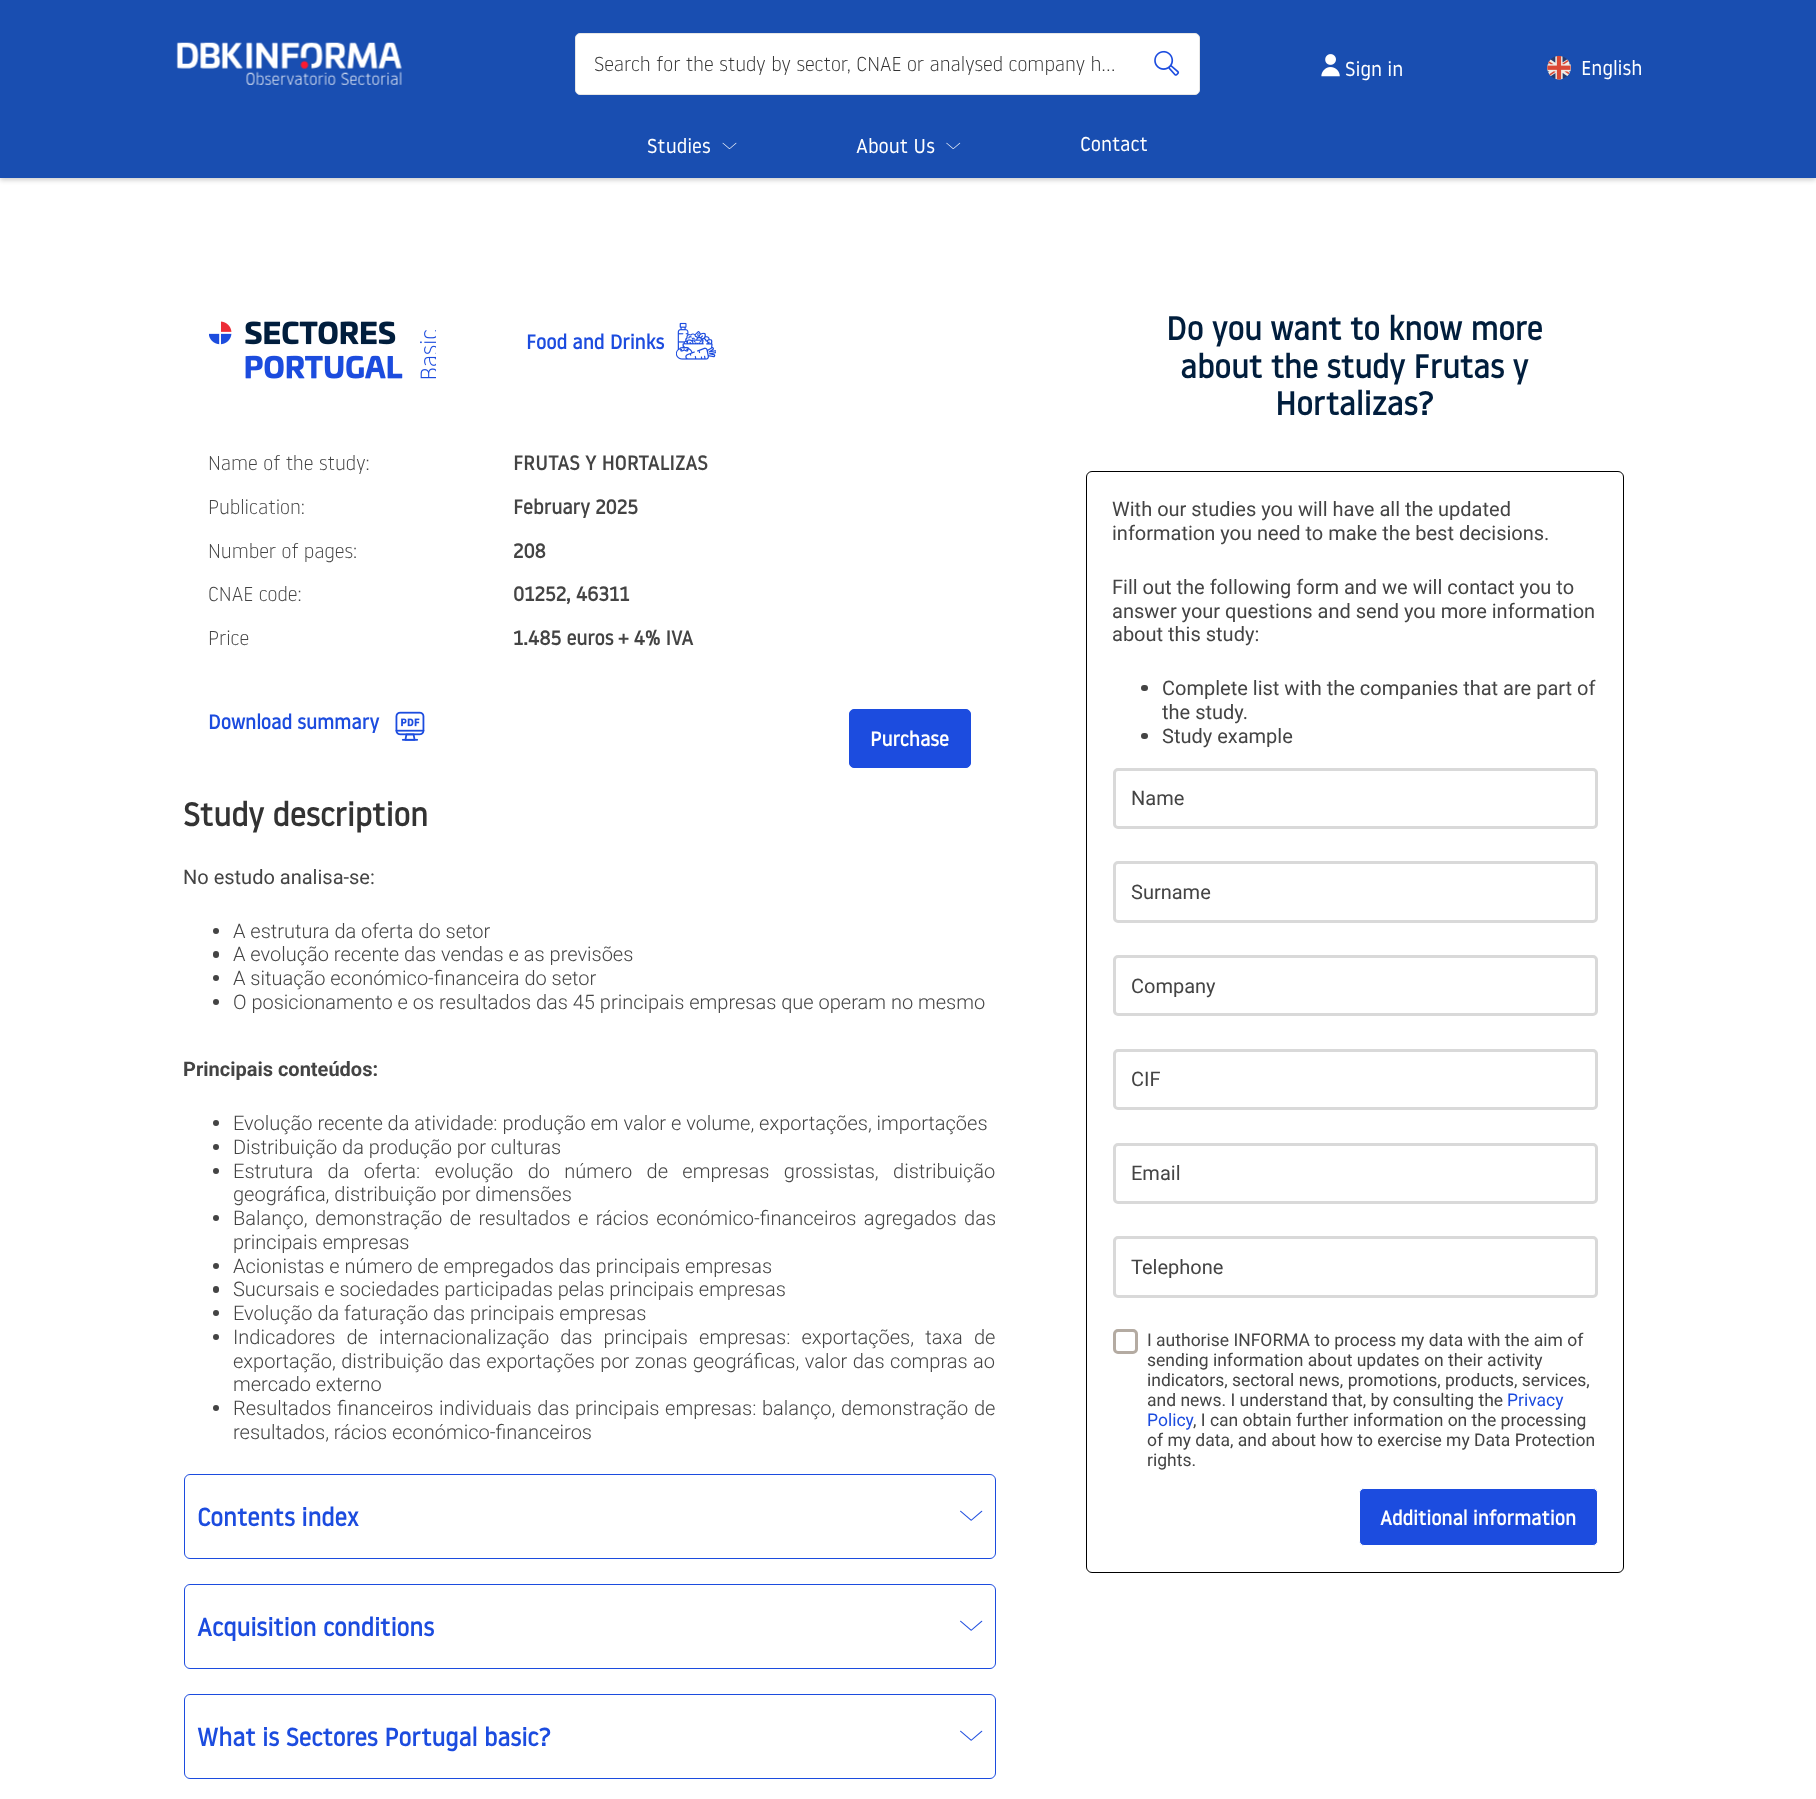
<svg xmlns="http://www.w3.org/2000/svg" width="1816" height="1799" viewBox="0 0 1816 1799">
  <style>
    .t1 { font: 300 20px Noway; fill: #333; }
    .t2 { font: 20px Noway; fill: #fff; }
    .t3 { font: bold 20px Noway; fill: #1c4cdf; }
    .t4 { font: 300 20px Noway; fill: #444; }
    .t5 { font: bold 20px Noway; fill: #444; }
    .t6 { font: bold 20px Noway; fill: #fff; }
    .t7 { font: bold 32.5px Noway; fill: #333; }
    .t8 { font: 20px Roboto; fill: #444; }
    .t9 { font: 300 20px Roboto; fill: #444; }
    .t10 { font: bold 20px Roboto; fill: #444; }
    .t11 { font: bold 25px Noway; fill: #1c4cdf; }
    .t12 { font: bold 32.5px Noway; fill: #011e3d; }
    .t13 { font: 17.5px Roboto; fill: #444; }
    .t14 { font: 17.5px Roboto; fill: #1c4cdf; }
  </style>
  <rect width="100%" height="100%" fill="#fff"/>
  <rect x="0" y="3" width="1816" height="177" fill="#00000033" filter="blur(2.5px)"/>
  <rect x="0" y="0" width="1816" height="178" fill="#194eb1"/>
  <image x="176" y="42" width="226" height="43" href="images/1.png"/>
  <rect x="575.5" y="33.5" width="624" height="61" rx="4.5" fill="#fff" stroke="#e6e6e6"/>
  <text x="594" y="71" class="t1">Search for the study by sector, CNAE or analysed company h…</text>
  <image x="1154" y="50" width="26" height="26" href="images/2.png"/>
  <image x="1321" y="54" width="19" height="23" href="images/3.png"/>
  <text x="1345" y="76" class="t2">Sign in</text>
  <image x="1547" y="55" width="24" height="25" href="images/4.png"/>
  <text x="1581" y="75" class="t2">English</text>
  <text x="647" y="153" class="t2">Studies</text>
  <image x="722" y="142" width="15" height="7" href="images/5.png"/>
  <text x="856" y="153" class="t2">About Us</text>
  <image x="946" y="142" width="15" height="7" href="images/6.png"/>
  <text x="1080" y="151" class="t2">Contact</text>
  <image x="209" y="321" width="227" height="58" href="images/7.png"/>
  <text x="526" y="349" class="t3">Food and Drinks</text>
  <image x="676" y="322" width="40" height="38" href="images/8.png"/>
  <text x="208" y="470" class="t4">Name of the study:</text>
  <text x="513" y="470" class="t5">FRUTAS Y HORTALIZAS</text>
  <text x="208" y="514" class="t4">Publication:</text>
  <text x="513" y="514" class="t5">February 2025</text>
  <text x="208" y="558" class="t4">Number of pages:</text>
  <text x="513" y="558" class="t5">208</text>
  <text x="208" y="601" class="t4">CNAE code:</text>
  <text x="513" y="601" class="t5">01252, 46311</text>
  <text x="208" y="645" class="t4">Price</text>
  <text x="513" y="645" class="t5">1.485 euros + 4% IVA</text>
  <text x="208" y="729" class="t3">Download summary</text>
  <image x="395" y="711" width="30" height="30" href="images/9.png"/>
  <rect x="849.5" y="709.5" width="121" height="58" rx="4.5" fill="#1c4cdf" stroke="#1c4cdf"/>
  <text x="870" y="746" class="t6">Purchase</text>
  <text x="183" y="826" class="t7">Study description</text>
  <text x="183" y="884" class="t8">No estudo analisa-se:</text>
  <circle cx="216" cy="931" r="3" fill="#444"/>
  <text x="233" y="938" class="t9">A estrutura da oferta do setor</text>
  <rect x="213" y="951" width="6" height="7" rx="3" fill="#444"/>
  <text x="233" y="961" class="t9">A evolução recente das vendas e as previsões</text>
  <circle cx="216" cy="978" r="3" fill="#444"/>
  <text x="233" y="985" class="t9">A situação económico-financeira do setor</text>
  <circle cx="216" cy="1002" r="3" fill="#444"/>
  <text x="233" y="1009" class="t9">O posicionamento e os resultados das 45 principais empresas que operam no mesmo</text>
  <text x="183" y="1076" class="t10">Principais conteúdos:</text>
  <circle cx="216" cy="1123" r="3" fill="#444"/>
  <text x="233" y="1130" class="t9">Evolução recente da atividade: produção em valor e volume, exportações, importações</text>
  <circle cx="216" cy="1147" r="3" fill="#444"/>
  <text x="233" y="1154" class="t9">Distribuição da produção por culturas</text>
  <circle cx="216" cy="1171" r="3" fill="#444"/>
  <text x="233" y="1178" word-spacing="9.5" class="t9">Estrutura da oferta: evolução do número de empresas grossistas, distribuição</text>
  <text x="233" y="1201" class="t9">geográfica, distribuição por dimensões</text>
  <circle cx="216" cy="1218" r="3" fill="#444"/>
  <text x="233" y="1225" word-spacing="2.5" class="t9">Balanço, demonstração de resultados e rácios económico-financeiros agregados das</text>
  <text x="233" y="1249" class="t9">principais empresas</text>
  <circle cx="216" cy="1266" r="3" fill="#444"/>
  <text x="233" y="1273" class="t9">Acionistas e número de empregados das principais empresas</text>
  <rect x="213" y="1286" width="6" height="7" rx="3" fill="#444"/>
  <text x="233" y="1296" class="t9">Sucursais e sociedades participadas pelas principais empresas</text>
  <circle cx="216" cy="1313" r="3" fill="#444"/>
  <text x="233" y="1320" class="t9">Evolução da faturação das principais empresas</text>
  <circle cx="216" cy="1337" r="3" fill="#444"/>
  <text x="233" y="1344" word-spacing="6.25" class="t9">Indicadores de internacionalização das principais empresas: exportações, taxa de</text>
  <text x="233" y="1368" word-spacing="0.5" class="t9">exportação, distribuição das exportações por zonas geográficas, valor das compras ao</text>
  <text x="233" y="1391" class="t9">mercado externo</text>
  <circle cx="216" cy="1408" r="3" fill="#444"/>
  <text x="233" y="1415" word-spacing="0.75" class="t9">Resultados financeiros individuais das principais empresas: balanço, demonstração de</text>
  <text x="233" y="1439" class="t9">resultados, rácios económico-financeiros</text>
  <rect x="184.5" y="1474.5" width="811" height="84" rx="5.5" fill="none" stroke="#1c4cdf"/>
  <text x="197" y="1526" class="t11">Contents index</text>
  <image x="960" y="1510" width="23" height="11" href="images/10.png"/>
  <rect x="184.5" y="1584.5" width="811" height="84" rx="5.5" fill="none" stroke="#1c4cdf"/>
  <text x="197" y="1636" class="t11">Acquisition conditions</text>
  <image x="960" y="1620" width="23" height="11" href="images/10.png"/>
  <rect x="184.5" y="1694.5" width="811" height="84" rx="5.5" fill="none" stroke="#1c4cdf"/>
  <text x="197" y="1746" class="t11">What is Sectores Portugal basic?</text>
  <image x="960" y="1730" width="23" height="11" href="images/10.png"/>
  <text x="1166" y="340" class="t12">Do you want to know more</text>
  <text x="1180" y="378" class="t12">about the study Frutas y</text>
  <text x="1275" y="415" class="t12">Hortalizas?</text>
  <rect x="1086.5" y="471.5" width="537" height="1101" rx="5.5" fill="none" stroke="#000"/>
  <text x="1112" y="516" class="t8">With our studies you will have all the updated</text>
  <text x="1112" y="540" class="t8">information you need to make the best decisions.</text>
  <text x="1112" y="594" class="t8">Fill out the following form and we will contact you to</text>
  <text x="1112" y="618" class="t8">answer your questions and send you more information</text>
  <text x="1112" y="641" class="t8">about this study:</text>
  <rect x="1141" y="685" width="7" height="6" rx="3" fill="#444"/>
  <text x="1162" y="695" class="t8">Complete list with the companies that are part of</text>
  <text x="1162" y="719" class="t8">the study.</text>
  <rect x="1141" y="733" width="7" height="6" rx="3" fill="#444"/>
  <text x="1162" y="743" class="t8">Study example</text>
  <rect x="1114.5" y="769.5" width="482" height="58" rx="3.5" fill="none" stroke="#d9d9d9" stroke-width="3"/>
  <text x="1131" y="805" class="t8">Name</text>
  <rect x="1114.5" y="862.5" width="482" height="59" rx="3.5" fill="none" stroke="#d9d9d9" stroke-width="3"/>
  <text x="1131" y="899" class="t8">Surname</text>
  <rect x="1114.5" y="956.5" width="482" height="58" rx="3.5" fill="none" stroke="#d9d9d9" stroke-width="3"/>
  <text x="1131" y="993" class="t8">Company</text>
  <rect x="1114.5" y="1050.5" width="482" height="58" rx="3.5" fill="none" stroke="#d9d9d9" stroke-width="3"/>
  <text x="1131" y="1086" class="t8">CIF</text>
  <rect x="1114.5" y="1144.5" width="482" height="58" rx="3.5" fill="none" stroke="#d9d9d9" stroke-width="3"/>
  <text x="1131" y="1180" class="t8">Email</text>
  <rect x="1114.5" y="1237.5" width="482" height="59" rx="3.5" fill="none" stroke="#d9d9d9" stroke-width="3"/>
  <text x="1131" y="1274" class="t8">Telephone</text>
  <rect x="1114.5" y="1330.5" width="22" height="22" rx="3.5" fill="none" stroke="#b4aba2" stroke-width="3"/>
  <text x="1147" y="1346" class="t13">I authorise INFORMA to process my data with the aim of</text>
  <text x="1147" y="1366" class="t13">sending information about updates on their activity</text>
  <text x="1147" y="1386" class="t13">indicators, sectoral news, promotions, products, services,</text>
  <text x="1147" y="1406" class="t13">and news. I understand that, by consulting the</text>
  <text x="1507" y="1406" class="t14">Privacy</text>
  <text x="1147" y="1426" class="t14">Policy</text>
  <text x="1193" y="1426" class="t13">, I can obtain further information on the processing</text>
  <text x="1147" y="1446" class="t13">of my data, and about how to exercise my Data Protection</text>
  <text x="1147" y="1466" class="t13">rights.</text>
  <rect x="1359.5" y="1488.5" width="238" height="57" rx="4.5" fill="#1c4cdf" stroke="#fff"/>
  <text x="1380" y="1525" class="t6">Additional information</text>
</svg>
